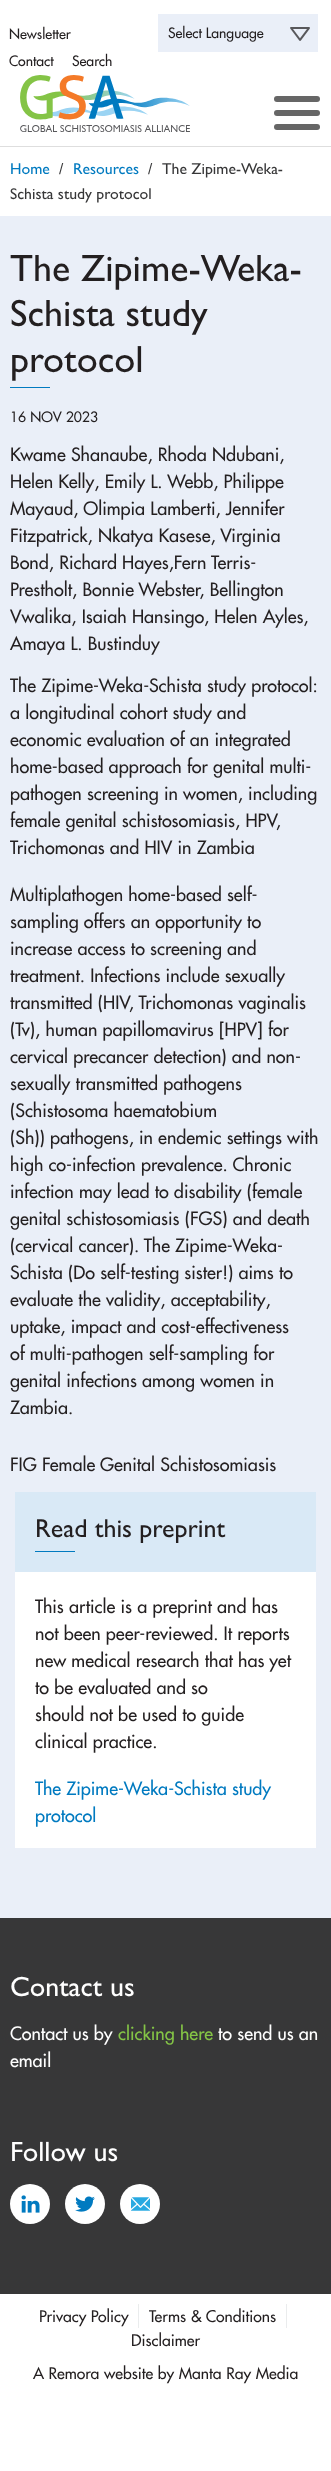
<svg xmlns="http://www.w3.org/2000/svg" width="331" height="2471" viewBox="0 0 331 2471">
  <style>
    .t1 { font: 500 14px Futura; fill: #231f20; }
    .t2 { font: 500 15.75px Gill Sans; fill: #007ac0; }
    .t3 { font: 500 15.75px Gill Sans; fill: #373738; }
    .t4 { font: 500 38px Gill Sans; fill: #231f20; }
    .t5 { font: 500 18px Futura; fill: #231f20; }
    .t6 { font: 500 26px Gill Sans; fill: #231f20; }
    .t7 { font: 500 18px Futura; fill: #007ac0; }
    .t8 { font: 500 28px Gill Sans; fill: #fff; }
    .t9 { font: 500 18px Futura; fill: #fff; }
    .t10 { font: 500 18px Futura; fill: #84c446; }
    .t11 { font: 500 15.75px Futura; fill: #231f20; }
  </style>
  <rect width="100%" height="100%" fill="#fff"/>
  <text x="9" y="39" class="t1">Newsletter</text>
  <text x="9" y="66" class="t1">Contact</text>
  <text x="72" y="66" class="t1">Search</text>
  <rect x="158" y="14" width="160" height="38" fill="#eaeff8"/>
  <image x="290" y="27" width="20" height="14" href="images/1.png"/>
  <text x="168" y="38" class="t1">Select Language</text>
  <image x="20" y="75" width="170" height="57" href="images/2.png"/>
  <rect x="274" y="110" width="46" height="6" rx="3" fill="#666"/>
  <rect x="274" y="96" width="46" height="6" rx="3" fill="#666"/>
  <rect x="274" y="124" width="46" height="6" rx="3" fill="#666"/>
  <rect x="0" y="146" width="331" height="1" fill="#dedede"/>
  <text x="10" y="174" class="t2">Home</text>
  <text x="59" y="174" class="t3">/</text>
  <text x="73" y="174" class="t2">Resources</text>
  <text x="148" y="174" class="t3">/</text>
  <text x="162" y="174" class="t3">The Zipime-Weka-</text>
  <text x="10" y="199" class="t3">Schista study protocol</text>
  <rect x="0" y="216" width="331" height="1702" fill="#eaeff8"/>
  <text x="10" y="281" class="t4">The Zipime-Weka-</text>
  <text x="10" y="326" class="t4">Schista study</text>
  <text x="10" y="372" class="t4">protocol</text>
  <rect x="10" y="387" width="40" height="1" fill="#007ac0"/>
  <text x="10" y="422" class="t1">16 NOV 2023</text>
  <text x="10" y="461" class="t5">Kwame Shanaube, Rhoda Ndubani,</text>
  <text x="10" y="488" class="t5">Helen Kelly, Emily L. Webb, Philippe</text>
  <text x="10" y="515" class="t5">Mayaud, Olimpia Lamberti, Jennifer</text>
  <text x="10" y="542" class="t5">Fitzpatrick, Nkatya Kasese, Virginia</text>
  <text x="10" y="569" class="t5">Bond, Richard Hayes,Fern Terris-</text>
  <text x="10" y="596" class="t5">Prestholt, Bonnie Webster, Bellington</text>
  <text x="10" y="623" class="t5">Vwalika, Isaiah Hansingo, Helen Ayles,</text>
  <text x="10" y="650" class="t5">Amaya L. Bustinduy</text>
  <text x="10" y="692" class="t5">The Zipime-Weka-Schista study protocol:</text>
  <text x="10" y="719" class="t5">a longitudinal cohort study and</text>
  <text x="10" y="746" class="t5">economic evaluation of an integrated</text>
  <text x="10" y="773" class="t5">home-based approach for genital multi-</text>
  <text x="10" y="800" class="t5">pathogen screening in women, including</text>
  <text x="10" y="827" class="t5">female genital schistosomiasis, HPV,</text>
  <text x="10" y="854" class="t5">Trichomonas and HIV in Zambia</text>
  <text x="10" y="901" class="t5">Multiplathogen home-based self-</text>
  <text x="10" y="928" class="t5">sampling offers an opportunity to</text>
  <text x="10" y="955" class="t5">increase access to screening and</text>
  <text x="10" y="982" class="t5">treatment. Infections include sexually</text>
  <text x="10" y="1009" class="t5">transmitted (HIV, Trichomonas vaginalis</text>
  <text x="10" y="1036" class="t5">(Tv), human papillomavirus [HPV] for</text>
  <text x="10" y="1063" class="t5">cervical precancer detection) and non-</text>
  <text x="10" y="1090" class="t5">sexually transmitted pathogens</text>
  <text x="10" y="1117" class="t5">(Schistosoma haematobium</text>
  <text x="10" y="1144" class="t5">(Sh)) pathogens, in endemic settings with</text>
  <text x="10" y="1171" class="t5">high co-infection prevalence. Chronic</text>
  <text x="10" y="1198" class="t5">infection may lead to disability (female</text>
  <text x="10" y="1225" class="t5">genital schistosomiasis (FGS) and death</text>
  <text x="10" y="1252" class="t5">(cervical cancer). The Zipime-Weka-</text>
  <text x="10" y="1279" class="t5">Schista (Do self-testing sister!) aims to</text>
  <text x="10" y="1306" class="t5">evaluate the validity, acceptability,</text>
  <text x="10" y="1333" class="t5">uptake, impact and cost-effectiveness</text>
  <text x="10" y="1360" class="t5">of multi-pathogen self-sampling for</text>
  <text x="10" y="1387" class="t5">genital infections among women in</text>
  <text x="10" y="1414" class="t5">Zambia.</text>
  <text x="10" y="1471" class="t5">FIG Female Genital Schistosomiasis</text>
  <rect x="15" y="1572" width="301" height="276" fill="#fff"/>
  <rect x="15" y="1492" width="301" height="80" fill="#d9e9f6"/>
  <text x="35" y="1537" class="t6">Read this preprint</text>
  <rect x="35" y="1551" width="40" height="1" fill="#007ac0"/>
  <text x="35" y="1613" class="t5">This article is a preprint and has</text>
  <text x="35" y="1640" class="t5">not been peer-reviewed. It reports</text>
  <text x="35" y="1667" class="t5">new medical research that has yet</text>
  <text x="35" y="1694" class="t5">to be evaluated and so</text>
  <text x="35" y="1721" class="t5">should not be used to guide</text>
  <text x="35" y="1748" class="t5">clinical practice.</text>
  <text x="35" y="1795" class="t7">The Zipime-Weka-Schista study</text>
  <text x="35" y="1822" class="t7">protocol</text>
  <rect x="0" y="1918" width="331" height="376" fill="#373738"/>
  <text x="10" y="1996" class="t8">Contact us</text>
  <text x="10" y="2040" class="t9">Contact us by</text>
  <text x="118" y="2040" class="t10">clicking here</text>
  <text x="218" y="2040" class="t9">to send us an</text>
  <text x="10" y="2067" class="t9">email</text>
  <text x="10" y="2161" class="t8">Follow us</text>
  <circle cx="30" cy="2204" r="20" fill="#fff"/>
  <image x="21" y="2195" width="19" height="18" href="images/3.png"/>
  <circle cx="85" cy="2204" r="20" fill="#fff"/>
  <image x="75" y="2196" width="20" height="16" href="images/4.png"/>
  <circle cx="140" cy="2204" r="20" fill="#fff"/>
  <image x="131" y="2197" width="19" height="14" href="images/5.png"/>
  <rect x="138" y="2304" width="1" height="24" fill="#eaeced"/>
  <text x="39" y="2322" class="t11">Privacy Policy</text>
  <rect x="286" y="2304" width="1" height="24" fill="#eaeced"/>
  <text x="149" y="2322" class="t11">Terms &amp; Conditions</text>
  <text x="131" y="2346" class="t11">Disclaimer</text>
  <text x="33" y="2379" class="t11">A Remora website by Manta Ray Media</text>
</svg>
